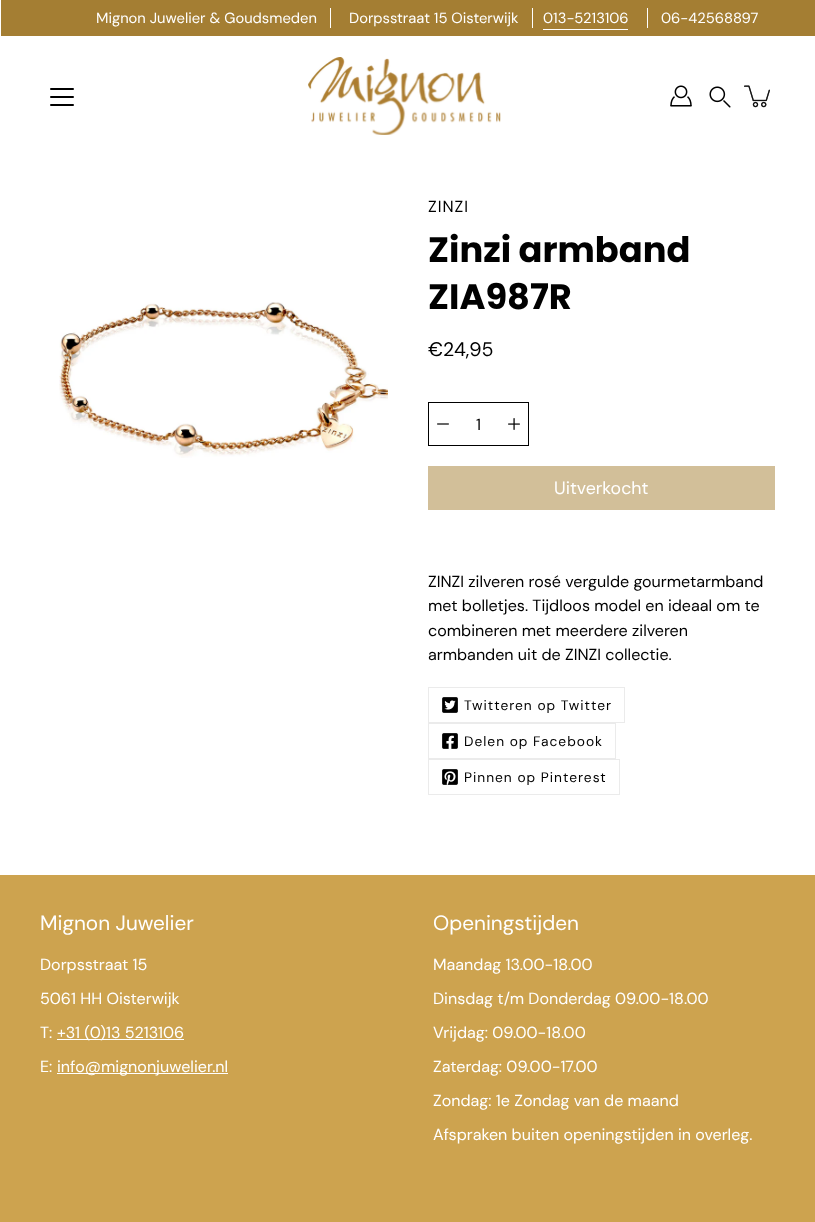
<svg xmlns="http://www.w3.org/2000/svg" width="815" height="1222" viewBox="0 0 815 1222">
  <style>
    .t1 { font: 14.75px 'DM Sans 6'; fill: #fff; }
    .t2 { font: 16.1px DM Sans; letter-spacing: 1px; fill: #000; }
    .t3 { font: bold 35.25px Poppins; fill: #000; }
    .t4 { font: 19.5px 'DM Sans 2'; fill: #000; }
    .t5 { font: 16.1px DM Sans; fill: #000; }
    .t6 { font: 17.75px 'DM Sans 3'; fill: #fff; }
    .t7 { font: 13.75px 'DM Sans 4'; letter-spacing: 1px; fill: #000; }
    .t8 { font: 20.75px 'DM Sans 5'; fill: #fff; }
    .t9 { font: 16.1px DM Sans; fill: #fff; }
  </style>
  <rect width="100%" height="100%" fill="#fff"/>
  <rect x="1" y="0" width="814" height="36" fill="#a47e33"/>
  <text x="96" y="23" class="t1">Mignon Juwelier &amp; Goudsmeden</text>
  <rect x="330" y="8" width="1" height="20" fill="#fff"/>
  <text x="349" y="23" class="t1">Dorpsstraat 15 Oisterwijk</text>
  <rect x="532" y="8" width="1" height="20" fill="#fff"/>
  <text x="543" y="23" class="t1">013-5213106</text>
  <rect x="543" y="29" width="85" height="1" fill="#fff"/>
  <rect x="647" y="8" width="1" height="20" fill="#fff"/>
  <text x="661" y="23" class="t1">06-42568897</text>
  <image x="308" y="57" width="193" height="78" href="images/1.png"/>
  <rect x="50" y="96" width="24" height="2" rx="1" fill="#000"/>
  <rect x="50" y="88" width="24" height="2" rx="1" fill="#000"/>
  <rect x="50" y="104" width="24" height="2" rx="1" fill="#000"/>
  <image x="670" y="85" width="22" height="22" href="images/2.png"/>
  <image x="709" y="86" width="22" height="22" href="images/3.png"/>
  <image x="744" y="85" width="26" height="23" href="images/4.png"/>
  <image x="59" y="302" width="329" height="156" href="images/5.png"/>
  <text x="428" y="212" class="t2">ZINZI</text>
  <text x="428" y="262" class="t3">Zinzi armband</text>
  <text x="428" y="309" class="t3">ZIA987R</text>
  <text x="428" y="356" class="t4">€24,95</text>
  <rect x="428.5" y="402.5" width="100" height="43" fill="none" stroke="#000"/>
  <image x="437" y="423" width="12" height="2" href="images/6.png"/>
  <text x="476" y="430" class="t5">1</text>
  <image x="508" y="418" width="12" height="12" href="images/7.png"/>
  <rect x="428" y="466" width="347" height="44" fill="#d2bf99"/>
  <text x="554" y="494" class="t6">Uitverkocht</text>
  <text x="428" y="587" class="t5">ZINZI zilveren rosé vergulde gourmetarmband</text>
  <text x="428" y="611" class="t5">met bolletjes. Tijdloos model en ideaal om te</text>
  <text x="428" y="636" class="t5">combineren met meerdere zilveren</text>
  <text x="428" y="660" class="t5">armbanden uit de ZINZI collectie.</text>
  <rect x="428.5" y="687.5" width="196" height="35" fill="none" stroke="#ebebeb"/>
  <image x="442" y="697" width="16" height="16" href="images/8.png"/>
  <text x="464" y="710" class="t7">Twitteren op Twitter</text>
  <rect x="428.5" y="723.5" width="187" height="35" fill="none" stroke="#ebebeb"/>
  <image x="442" y="733" width="16" height="16" href="images/9.png"/>
  <text x="464" y="746" class="t7">Delen op Facebook</text>
  <rect x="428.5" y="759.5" width="191" height="35" fill="none" stroke="#ebebeb"/>
  <image x="442" y="769" width="16" height="16" href="images/10.png"/>
  <text x="464" y="782" class="t7">Pinnen op Pinterest</text>
  <rect x="0" y="875" width="815" height="347" fill="#cda34f"/>
  <text x="40" y="930" class="t8">Mignon Juwelier</text>
  <text x="40" y="970" class="t9">Dorpsstraat 15</text>
  <text x="40" y="1004" class="t9">5061 HH Oisterwijk</text>
  <text x="40" y="1038" class="t9">T:</text>
  <rect x="57" y="1039" width="127" height="1" fill="#fff"/>
  <text x="57" y="1038" class="t9">+31 (0)13 5213106</text>
  <text x="40" y="1072" class="t9">E:</text>
  <rect x="57" y="1073" width="171" height="1" fill="#fff"/>
  <text x="57" y="1072" class="t9">info@mignonjuwelier.nl</text>
  <text x="433" y="930" class="t8">Openingstijden</text>
  <text x="433" y="970" class="t9">Maandag 13.00-18.00</text>
  <text x="433" y="1004" class="t9">Dinsdag t/m Donderdag 09.00-18.00</text>
  <text x="433" y="1038" class="t9">Vrijdag: 09.00-18.00</text>
  <text x="433" y="1072" class="t9">Zaterdag: 09.00-17.00</text>
  <text x="433" y="1106" class="t9">Zondag: 1e Zondag van de maand</text>
  <text x="433" y="1140" class="t9">Afspraken buiten openingstijden in overleg.</text>
</svg>
